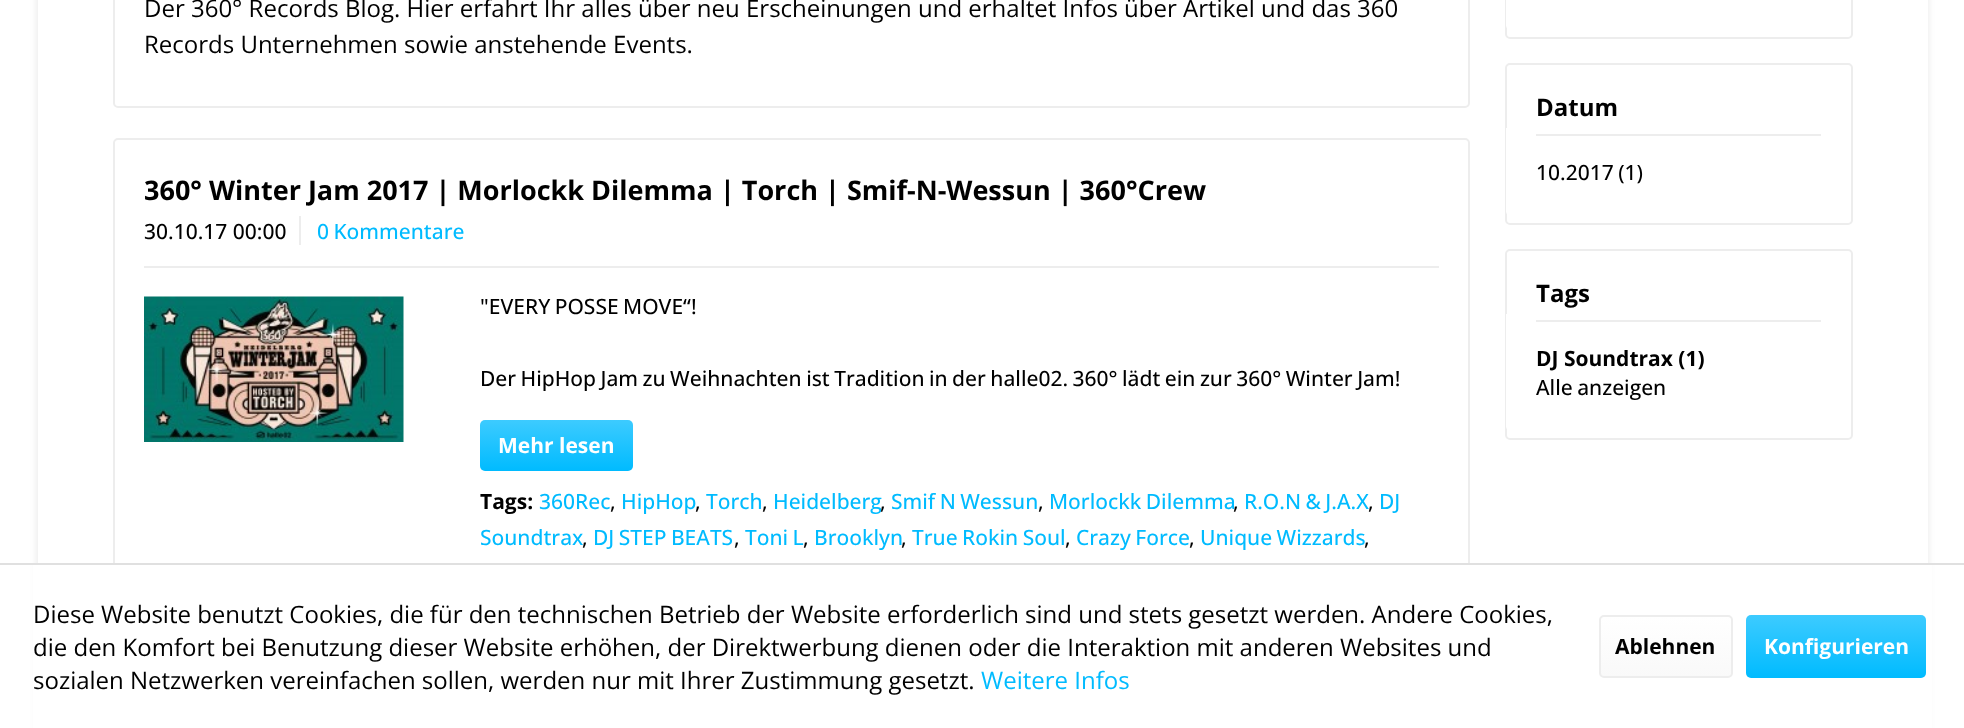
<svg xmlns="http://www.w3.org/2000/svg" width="1964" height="728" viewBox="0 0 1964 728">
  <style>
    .t1 { font: 24px Open Sans; fill: #000; }
    .t2 { font: bold 27px Open Sans; fill: #000; }
    .t3 { font: 500 21px Open Sans; fill: #000; }
    .t4 { font: 500 21px Open Sans; fill: #0bf; }
    .t5 { font: bold 21px Open Sans; fill: #fff; }
    .t6 { font: bold 21px Open Sans; fill: #000; }
    .t7 { font: bold 24px Open Sans; fill: #000; }
    .t8 { font: 24px Open Sans; fill: #0bf; }
  </style>
  <defs>
    <linearGradient id="g1" gradientUnits="userSpaceOnUse" x1="557" y1="420" x2="557" y2="471"><stop offset="0" stop-color="#3dcbff"/><stop offset="1" stop-color="#0bf"/></linearGradient>
    <linearGradient id="g2" gradientUnits="userSpaceOnUse" x1="1666" y1="617" x2="1666" y2="677"><stop offset="0" stop-color="#fff"/><stop offset="1" stop-color="#f9f9f9"/></linearGradient>
    <linearGradient id="g3" gradientUnits="userSpaceOnUse" x1="1836" y1="615" x2="1836" y2="678"><stop offset="0" stop-color="#3dcbff"/><stop offset="1" stop-color="#0bf"/></linearGradient>
  </defs>
  <rect width="100%" height="100%" fill="#fff"/>
  <rect x="36" y="-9" width="1893" height="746" fill="#ededed" filter="blur(3px)"/>
  <rect x="38" y="0" width="1890" height="563" fill="#fff"/>
  <rect x="114" y="-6" width="1355" height="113" rx="4" fill="none" stroke="#ededed" stroke-width="2"/>
  <text x="144" y="17" class="t1">Der 360° Records Blog. Hier erfahrt Ihr alles über neu Erscheinungen und erhaltet Infos über Artikel und das 360</text>
  <text x="144" y="53" class="t1">Records Unternehmen sowie anstehende Events.</text>
  <rect x="114" y="139" width="1355" height="555" rx="4" fill="none" stroke="#ededed" stroke-width="2"/>
  <text x="144" y="200" class="t2">360° Winter Jam 2017 | Morlockk Dilemma | Torch | Smif-N-Wessun | 360°Crew</text>
  <rect x="144" y="266" width="1295" height="2" fill="#ededed"/>
  <rect x="299" y="216" width="2" height="29" fill="#ededed"/>
  <text x="144" y="239" class="t3">30.10.17 00:00</text>
  <text x="317" y="239" word-spacing="-1" class="t4">0 Kommentare</text>
  <image x="144" y="296" width="260" height="146" href="images/1.png"/>
  <text x="480" y="314" word-spacing="-1" class="t3">"EVERY POSSE MOVE“!</text>
  <text x="480" y="386" word-spacing="-1" class="t3">Der HipHop Jam zu Weihnachten ist Tradition in der halle02. 360° lädt ein zur 360° Winter Jam!</text>
  <rect x="480" y="420" width="153" height="51" rx="5" fill="url(#g1)"/>
  <text x="498" y="453" class="t5">Mehr lesen</text>
  <text x="480" y="509" class="t6">Tags:</text>
  <text x="539" y="509" class="t4">360Rec</text>
  <text x="610" y="509" class="t3">,</text>
  <text x="621" y="509" class="t4">HipHop</text>
  <text x="695" y="509" class="t3">,</text>
  <text x="706" y="509" class="t4">Torch</text>
  <text x="762" y="509" class="t3">,</text>
  <text x="773" y="509" class="t4">Heidelberg</text>
  <text x="880" y="509" class="t3">,</text>
  <text x="891" y="509" word-spacing="-1" class="t4">Smif N Wessun</text>
  <text x="1038" y="509" class="t3">,</text>
  <text x="1049" y="509" word-spacing="-1" class="t4">Morlockk Dilemma</text>
  <text x="1233" y="509" class="t3">,</text>
  <text x="1244" y="509" word-spacing="-1" class="t4">R.O.N &amp; J.A.X</text>
  <text x="1368" y="509" class="t3">,</text>
  <text x="1379" y="509" class="t4">DJ</text>
  <text x="480" y="545" class="t4">Soundtrax</text>
  <text x="582" y="545" class="t3">,</text>
  <text x="593" y="545" word-spacing="-1" class="t4">DJ STEP BEATS</text>
  <text x="734" y="545" class="t3">,</text>
  <text x="745" y="545" word-spacing="-1" class="t4">Toni L</text>
  <text x="803" y="545" class="t3">,</text>
  <text x="814" y="545" class="t4">Brooklyn</text>
  <text x="901" y="545" class="t3">,</text>
  <text x="912" y="545" word-spacing="-1" class="t4">True Rokin Soul</text>
  <text x="1065" y="545" class="t3">,</text>
  <text x="1076" y="545" word-spacing="-1" class="t4">Crazy Force</text>
  <text x="1189" y="545" class="t3">,</text>
  <text x="1200" y="545" word-spacing="-1" class="t4">Unique Wizzards</text>
  <text x="1364" y="545" class="t3">,</text>
  <rect x="1506" y="-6" width="346" height="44" rx="4" fill="none" stroke="#ededed" stroke-width="2"/>
  <path d="M1506-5H1851V25C1851 28 1849 30 1846 30H1511C1508 30 1506 28 1506 25Z" fill="#fff"/>
  <rect x="1506" y="64" width="346" height="160" rx="4" fill="none" stroke="#ededed" stroke-width="2"/>
  <path d="M1506 128H1851V211C1851 214 1849 216 1846 216H1511C1508 216 1506 214 1506 211Z" fill="#fff"/>
  <rect x="1536" y="134" width="285" height="2" fill="#ededed"/>
  <text x="1536" y="116" class="t7">Datum</text>
  <text x="1536" y="180" word-spacing="-1" class="t3">10.2017 (1)</text>
  <rect x="1506" y="250" width="346" height="189" rx="4" fill="none" stroke="#ededed" stroke-width="2"/>
  <path d="M1506 314H1851V426C1851 429 1849 431 1846 431H1511C1508 431 1506 429 1506 426Z" fill="#fff"/>
  <rect x="1536" y="320" width="285" height="2" fill="#ededed"/>
  <text x="1536" y="302" class="t7">Tags</text>
  <text x="1536" y="366" class="t6">DJ Soundtrax (1)</text>
  <text x="1536" y="395" word-spacing="-1" class="t3">Alle anzeigen</text>
  <rect x="33" y="565" width="1899" height="163" fill="#fff"/>
  <rect x="0" y="563" width="1964" height="2" fill="#e0e0e0"/>
  <text x="33" y="623" class="t1">Diese Website benutzt Cookies, die für den technischen Betrieb der Website erforderlich sind und stets gesetzt werden. Andere Cookies,</text>
  <text x="33" y="656" class="t1">die den Komfort bei Benutzung dieser Website erhöhen, der Direktwerbung dienen oder die Interaktion mit anderen Websites und</text>
  <text x="33" y="689" class="t1">sozialen Netzwerken vereinfachen sollen, werden nur mit Ihrer Zustimmung gesetzt.</text>
  <text x="981" y="689" class="t8">Weitere Infos</text>
  <rect x="1601" y="617" width="130" height="60" rx="3" fill="url(#g2)"/>
  <rect x="1600" y="616" width="132" height="61" rx="4" fill="none" stroke="#ededed" stroke-width="2"/>
  <text x="1615" y="654" class="t6">Ablehnen</text>
  <rect x="1746" y="615" width="180" height="63" rx="5" fill="url(#g3)"/>
  <text x="1764" y="654" class="t5">Konfigurieren</text>
</svg>
